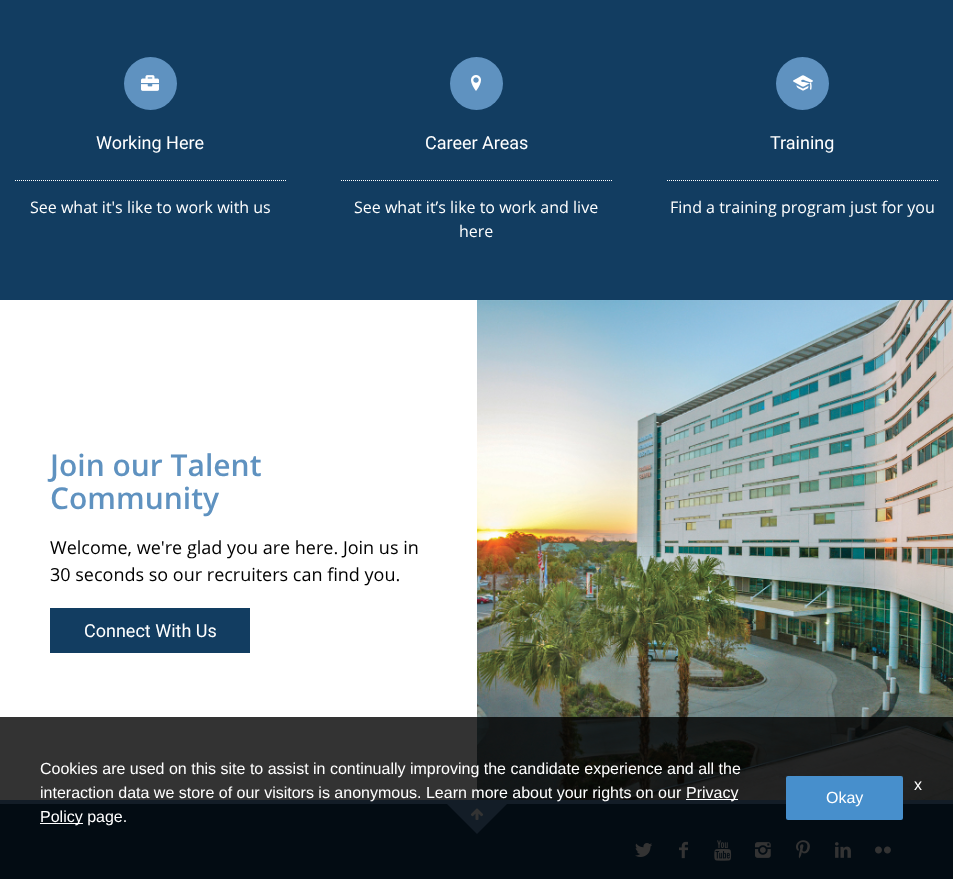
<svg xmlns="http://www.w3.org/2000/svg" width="953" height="879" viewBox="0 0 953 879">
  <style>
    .t1 { font: 18px Roboto; fill: #fff; }
    .t2 { font: 16px Open Sans; fill: #fff; }
    .t3 { font: 600 30px Open Sans; fill: #5f92c0; }
    .t4 { font: 18px Open Sans; fill: #000; }
    .t5 { font: 16px Liberation Sans; fill: #fff; }
  </style>
  <rect width="100%" height="100%" fill="#fff"/>
  <rect x="0" y="0" width="953" height="300" fill="#123d61"/>
  <circle cx="150.5" cy="83.5" r="26.5" fill="#5f92c0"/>
  <image x="141" y="75" width="18" height="16" href="images/1.png"/>
  <path d="M15 180.5H286" fill="none" stroke="#fff" stroke-dasharray="1 1"/>
  <text x="96" y="149" class="t1">Working Here</text>
  <text x="30" y="213" class="t2">See what it's like to work with us</text>
  <circle cx="476.5" cy="83.5" r="26.5" fill="#5f92c0"/>
  <image x="471" y="75" width="10" height="16" href="images/2.png"/>
  <path d="M341 180.5H612" fill="none" stroke="#fff" stroke-dasharray="1 1"/>
  <text x="425" y="149" class="t1">Career Areas</text>
  <text x="354" y="213" class="t2">See what it’s like to work and live</text>
  <text x="459" y="237" class="t2">here</text>
  <circle cx="802.5" cy="83.5" r="26.5" fill="#5f92c0"/>
  <image x="793" y="75" width="20" height="16" href="images/3.png"/>
  <path d="M667 180.5H938" fill="none" stroke="#fff" stroke-dasharray="1 1"/>
  <text x="770" y="149" class="t1">Training</text>
  <text x="670" y="213" class="t2">Find a training program just for you</text>
  <text x="50" y="476" class="t3">Join our Talent</text>
  <text x="50" y="509" class="t3">Community</text>
  <text x="50" y="554" class="t4">Welcome, we're glad you are here. Join us in</text>
  <text x="50" y="581" class="t4">30 seconds so our recruiters can find you.</text>
  <rect x="50" y="608" width="200" height="45" fill="#123d61"/>
  <text x="84" y="637" class="t1">Connect With Us</text>
  <image x="477" y="300" width="476" height="500" href="images/4.png"/>
  <rect x="0" y="804" width="953" height="75" fill="#123d61"/>
  <rect x="0" y="800" width="953" height="4" fill="#5f92c0"/>
  <path d="M447 804H507L477 834Z" fill="#5f92c0"/>
  <image x="470" y="808" width="14" height="12" href="images/5.png"/>
  <image x="635" y="843" width="17" height="14" href="images/6.png"/>
  <image x="679" y="841" width="9" height="18" href="images/7.png"/>
  <image x="714" y="840" width="18" height="21" href="images/8.png"/>
  <image x="755" y="842" width="16" height="16" href="images/9.png"/>
  <image x="796" y="840" width="14" height="19" href="images/10.png"/>
  <image x="835" y="842" width="16" height="16" href="images/11.png"/>
  <image x="875" y="846" width="16" height="8" href="images/12.png"/>
  <rect x="0" y="717" width="953" height="162" fill="#000000cc"/>
  <text x="40" y="774" class="t5">Cookies are used on this site to assist in continually improving the candidate experience and all the</text>
  <text x="40" y="798" class="t5">interaction data we store of our visitors is anonymous. Learn more about your rights on our</text>
  <rect x="686" y="799" width="52" height="1" fill="#fff"/>
  <text x="686" y="798" class="t5">Privacy</text>
  <rect x="40" y="823" width="43" height="1" fill="#fff"/>
  <text x="40" y="822" class="t5">Policy page.</text>
  <rect x="786" y="776" width="117" height="44" rx="2" fill="#478fcc"/>
  <text x="826" y="803" class="t5">Okay</text>
  <text x="914" y="790" class="t5">x</text>
</svg>
